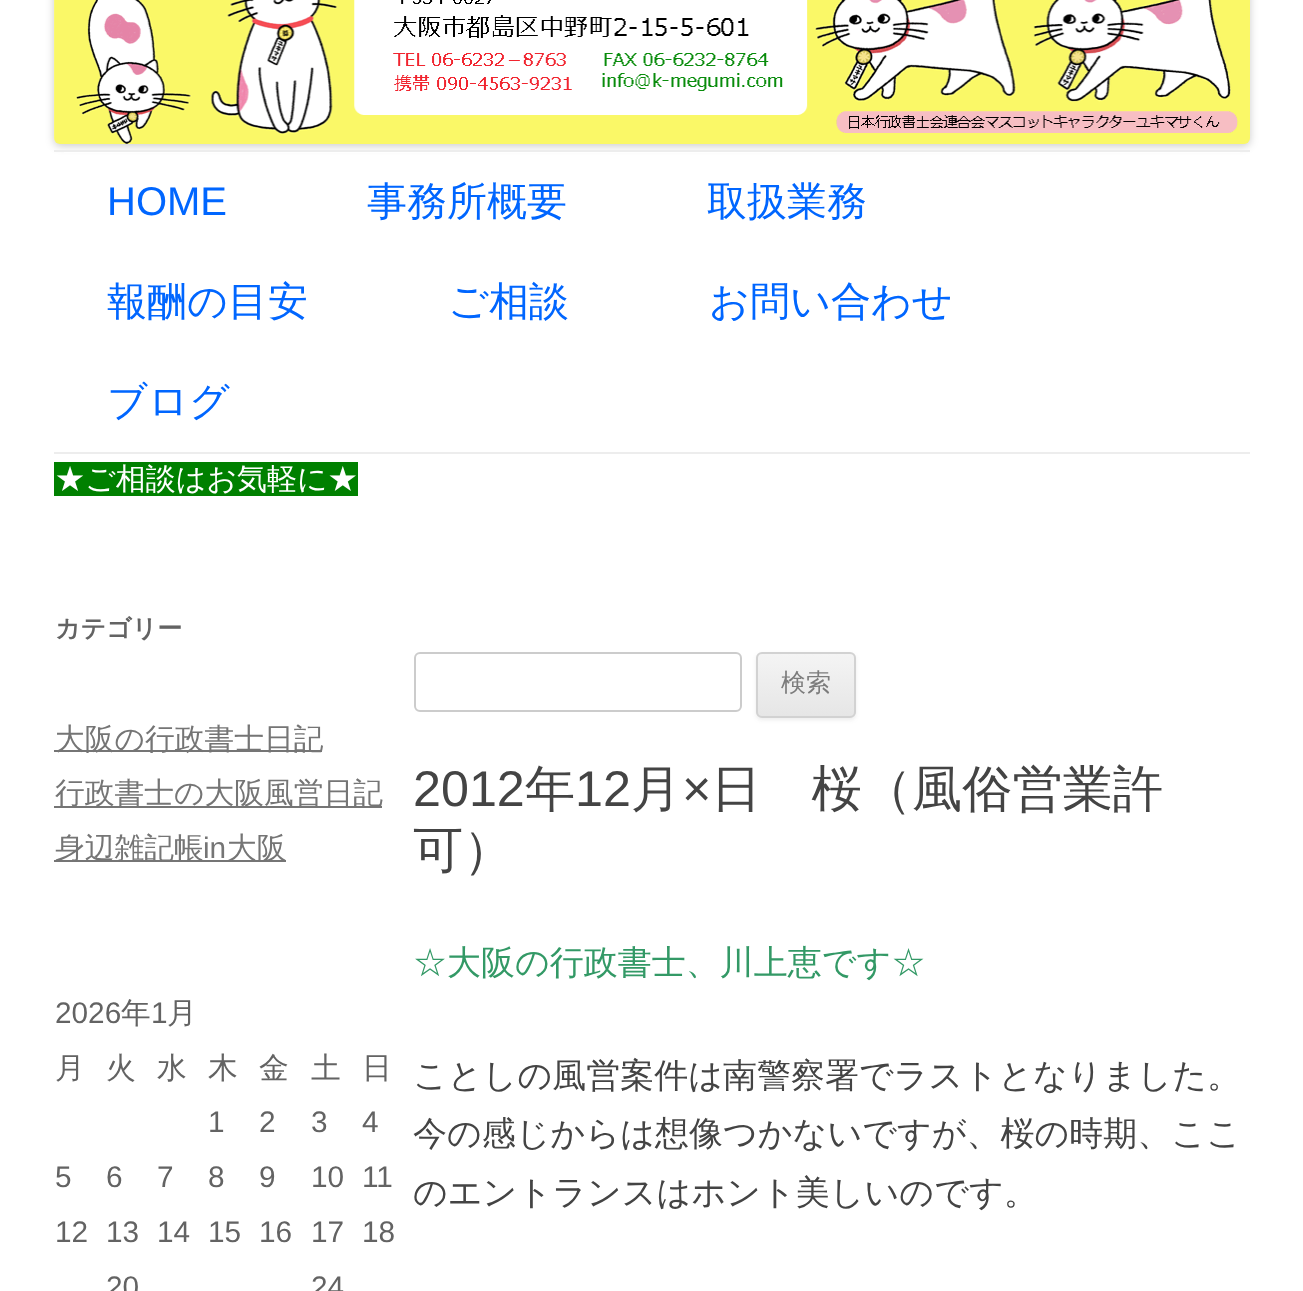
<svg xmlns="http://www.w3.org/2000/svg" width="1303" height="1291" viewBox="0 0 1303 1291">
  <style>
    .t1 { font: 40px Liberation Sans; fill: #06f; }
    .t2 { font: 500 40px WenQuanYi Zen Hei; fill: #06f; }
    .t3 { font: 500 30px WenQuanYi Zen Hei; fill: #fff; }
    .t4 { font: bold 25px WenQuanYi Zen Hei; fill: #636363; }
    .t5 { font: 500 29.75px WenQuanYi Zen Hei; fill: #757575; }
    .t6 { font: 29.75px Liberation Sans; fill: #757575; }
    .t7 { font: 29.75px Liberation Sans; fill: #636363; }
    .t8 { font: 500 29.75px WenQuanYi Zen Hei; fill: #636363; }
    .t9 { font: 500 25px WenQuanYi Zen Hei; fill: #7c7c7c; }
    .t10 { font: 50.25px Liberation Sans; fill: #444; }
    .t11 { font: 500 50.25px WenQuanYi Zen Hei; fill: #444; }
    .t12 { font: 500 34px WenQuanYi Zen Hei; fill: #396; }
    .t13 { font: 500 34px WenQuanYi Zen Hei; fill: #444; }
  </style>
  <defs>
    <clipPath id="clip1"><rect x="756" y="652" width="100" height="66" rx="6"/></clipPath>
    <linearGradient id="g1" gradientUnits="userSpaceOnUse" x1="806" y1="654" x2="806" y2="716"><stop offset="0" stop-color="#f4f4f4"/><stop offset="1" stop-color="#e6e6e6"/></linearGradient>
  </defs>
  <rect width="100%" height="100%" fill="#fff"/>
  <rect x="54" y="-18" width="1196" height="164" rx="6" fill="#00000033" filter="blur(4px)"/>
  <image x="54" y="0" width="1196" height="144" href="images/1.png"/>
  <rect x="64" y="152" width="1176" height="1" fill="#fff"/>
  <rect x="54" y="150" width="1196" height="2" fill="#ededed"/>
  <rect x="54" y="452" width="1196" height="2" fill="#ededed"/>
  <text x="107" y="215" class="t1">HOME</text>
  <text x="367" y="215" class="t2">事務所概要</text>
  <text x="707" y="215" class="t2">取扱業務</text>
  <text x="107" y="315" class="t2">報酬の目安</text>
  <text x="448" y="315" class="t2">ご相談</text>
  <text x="709" y="315" class="t2">お問い合わせ</text>
  <text x="107" y="415" class="t2">ブログ</text>
  <rect x="54" y="462" width="304" height="34" fill="#008000"/>
  <text x="55" y="489" class="t3">★ご相談はお気軽に★</text>
  <text x="55" y="637" class="t4">カテゴリー</text>
  <rect x="54" y="750" width="268" height="2" fill="#757575"/>
  <text x="55" y="749" class="t5">大阪の行政書士日記</text>
  <rect x="54" y="806" width="328" height="2" fill="#757575"/>
  <text x="55" y="803" class="t5">行政書士の大阪風営日記</text>
  <rect x="54" y="860" width="232" height="2" fill="#757575"/>
  <text x="55" y="858" class="t5">身辺雑記帳</text>
  <text x="203" y="858" class="t6">in</text>
  <text x="227" y="858" class="t5">大阪</text>
  <text x="55" y="1023" class="t7">2026</text>
  <text x="121" y="1023" class="t8">年</text>
  <text x="151" y="1023" class="t7">1</text>
  <text x="167" y="1023" class="t8">月</text>
  <text x="55" y="1078" class="t8">月</text>
  <text x="106" y="1078" class="t8">火</text>
  <text x="157" y="1078" class="t8">水</text>
  <text x="208" y="1078" class="t8">木</text>
  <text x="259" y="1078" class="t8">金</text>
  <text x="311" y="1078" class="t8">土</text>
  <text x="362" y="1078" class="t8">日</text>
  <text x="208" y="1132" class="t7">1</text>
  <text x="259" y="1132" class="t7">2</text>
  <text x="311" y="1132" class="t7">3</text>
  <text x="362" y="1132" class="t7">4</text>
  <text x="55" y="1187" class="t7">5</text>
  <text x="106" y="1187" class="t7">6</text>
  <text x="157" y="1187" class="t7">7</text>
  <text x="208" y="1187" class="t7">8</text>
  <text x="259" y="1187" class="t7">9</text>
  <text x="311" y="1187" class="t7">10</text>
  <text x="362" y="1187" class="t7">11</text>
  <text x="55" y="1242" class="t7">12</text>
  <text x="106" y="1242" class="t7">13</text>
  <text x="157" y="1242" class="t7">14</text>
  <text x="208" y="1242" class="t7">15</text>
  <text x="259" y="1242" class="t7">16</text>
  <text x="311" y="1242" class="t7">17</text>
  <text x="362" y="1242" class="t7">18</text>
  <text x="106" y="1297" class="t7">20</text>
  <text x="311" y="1297" class="t7">24</text>
  <rect x="415" y="653" width="326" height="58" rx="5" fill="none" stroke="#ccc" stroke-width="2"/>
  <rect x="756" y="654" width="100" height="66" rx="6" fill="#4040401a" filter="blur(2px)"/>
  <g clip-path="url(#clip1)">
    <rect x="756" y="654" width="100" height="62" fill="url(#g1)"/>
  </g>
  <rect x="757" y="653" width="98" height="64" rx="5" fill="none" stroke="#d2d2d2" stroke-width="2"/>
  <text x="781" y="691" class="t9">検索</text>
  <text x="413" y="806" class="t10">2012</text>
  <text x="525" y="806" class="t11">年</text>
  <text x="575" y="806" class="t10">12</text>
  <text x="631" y="806" class="t11">月</text>
  <text x="682" y="806" class="t10">×</text>
  <text x="711" y="806" class="t11">日　桜（風俗営業許</text>
  <text x="413" y="867" class="t11">可）</text>
  <text x="413" y="974" class="t12">☆大阪の行政書士、川上恵です☆</text>
  <text x="413" y="1087" class="t13">ことしの風営案件は南警察署でラストとなりました。</text>
  <text x="413" y="1145" class="t13">今の感じからは想像つかないですが、桜の時期、ここ</text>
  <text x="413" y="1204" class="t13">のエントランスはホント美しいのです。</text>
</svg>
